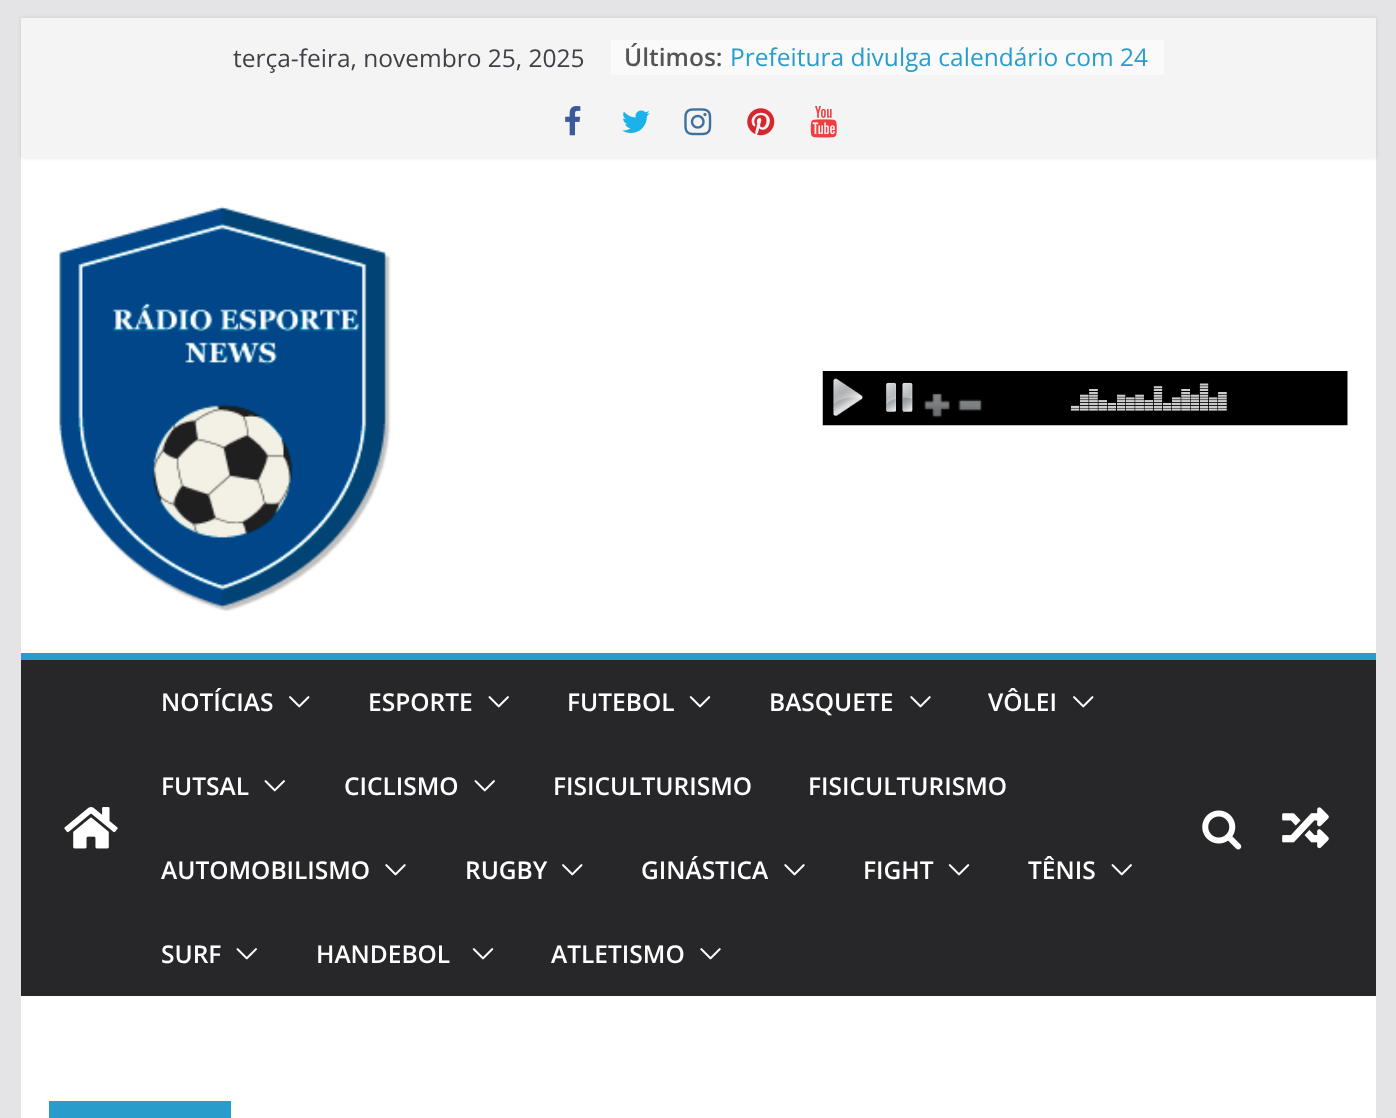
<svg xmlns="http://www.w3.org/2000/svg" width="1396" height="1118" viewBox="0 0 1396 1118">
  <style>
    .t1 { font: 24.5px Open Sans; fill: #3f3f46; }
    .t2 { font: 600 24.5px Open Sans; fill: #555; }
    .t3 { font: 24.5px Open Sans; fill: #289dcc; }
    .t4 { font: 600 24.5px Open Sans; fill: #fff; }
  </style>
  <rect width="100%" height="100%" fill="#e4e4e7"/>
  <rect x="21" y="158" width="1355" height="495" fill="#fff"/>
  <rect x="21" y="18" width="1355" height="140" fill="#0000001a" filter="blur(2px)"/>
  <rect x="21" y="18" width="1355" height="140" fill="#f4f4f5"/>
  <text x="233" y="67" class="t1">terça-feira, novembro 25, 2025</text>
  <rect x="611" y="40" width="553" height="35" fill="#fafafa"/>
  <text x="624" y="66" class="t2">Últimos:</text>
  <text x="730" y="66" class="t3">Prefeitura divulga calendário com 24</text>
  <image x="565" y="106" width="16" height="30" href="images/1.png"/>
  <image x="622" y="110" width="28" height="23" href="images/2.png"/>
  <image x="684" y="108" width="28" height="28" href="images/3.png"/>
  <image x="747" y="108" width="28" height="28" href="images/4.png"/>
  <image x="810" y="106" width="27" height="32" href="images/5.png"/>
  <image x="59" y="206" width="332" height="405" href="images/6.png"/>
  <image x="822" y="371" width="526" height="55" href="images/7.png"/>
  <rect x="21" y="660" width="1355" height="336" fill="#27272a"/>
  <rect x="21" y="653" width="1355" height="7" fill="#289dcc"/>
  <image x="64" y="807" width="54" height="42" href="images/8.png"/>
  <text x="161" y="711" class="t4">NOTÍCIAS</text>
  <image x="289" y="696" width="21" height="12" href="images/9.png"/>
  <text x="368" y="711" class="t4">ESPORTE</text>
  <image x="488" y="696" width="21" height="12" href="images/10.png"/>
  <text x="567" y="711" class="t4">FUTEBOL</text>
  <image x="689" y="696" width="22" height="12" href="images/11.png"/>
  <text x="769" y="711" class="t4">BASQUETE</text>
  <image x="910" y="696" width="21" height="12" href="images/12.png"/>
  <text x="988" y="711" class="t4">VÔLEI</text>
  <image x="1073" y="696" width="21" height="12" href="images/9.png"/>
  <text x="161" y="795" class="t4">FUTSAL</text>
  <image x="264" y="780" width="21" height="12" href="images/10.png"/>
  <text x="344" y="795" class="t4">CICLISMO</text>
  <image x="474" y="780" width="21" height="12" href="images/10.png"/>
  <text x="553" y="795" class="t4">FISICULTURISMO</text>
  <text x="808" y="795" class="t4">FISICULTURISMO</text>
  <text x="161" y="879" class="t4">AUTOMOBILISMO</text>
  <image x="385" y="864" width="21" height="12" href="images/12.png"/>
  <text x="465" y="879" class="t4">RUGBY</text>
  <image x="562" y="864" width="21" height="12" href="images/9.png"/>
  <text x="641" y="879" class="t4">GINÁSTICA</text>
  <image x="784" y="864" width="21" height="12" href="images/12.png"/>
  <text x="863" y="879" class="t4">FIGHT</text>
  <image x="948" y="864" width="22" height="12" href="images/11.png"/>
  <text x="1028" y="879" class="t4">TÊNIS</text>
  <image x="1111" y="864" width="21" height="12" href="images/10.png"/>
  <text x="161" y="963" class="t4">SURF</text>
  <image x="236" y="948" width="21" height="12" href="images/10.png"/>
  <text x="316" y="963" class="t4">HANDEBOL</text>
  <image x="472" y="948" width="22" height="12" href="images/11.png"/>
  <text x="551" y="963" class="t4">ATLETISMO</text>
  <image x="700" y="948" width="21" height="12" href="images/12.png"/>
  <image x="1202" y="810" width="40" height="40" href="images/13.png"/>
  <image x="1282" y="807" width="47" height="42" href="images/14.png"/>
  <rect x="21" y="996" width="1355" height="122" fill="#fff"/>
  <rect x="49" y="1101" width="182" height="17" fill="#289dcc"/>
</svg>
